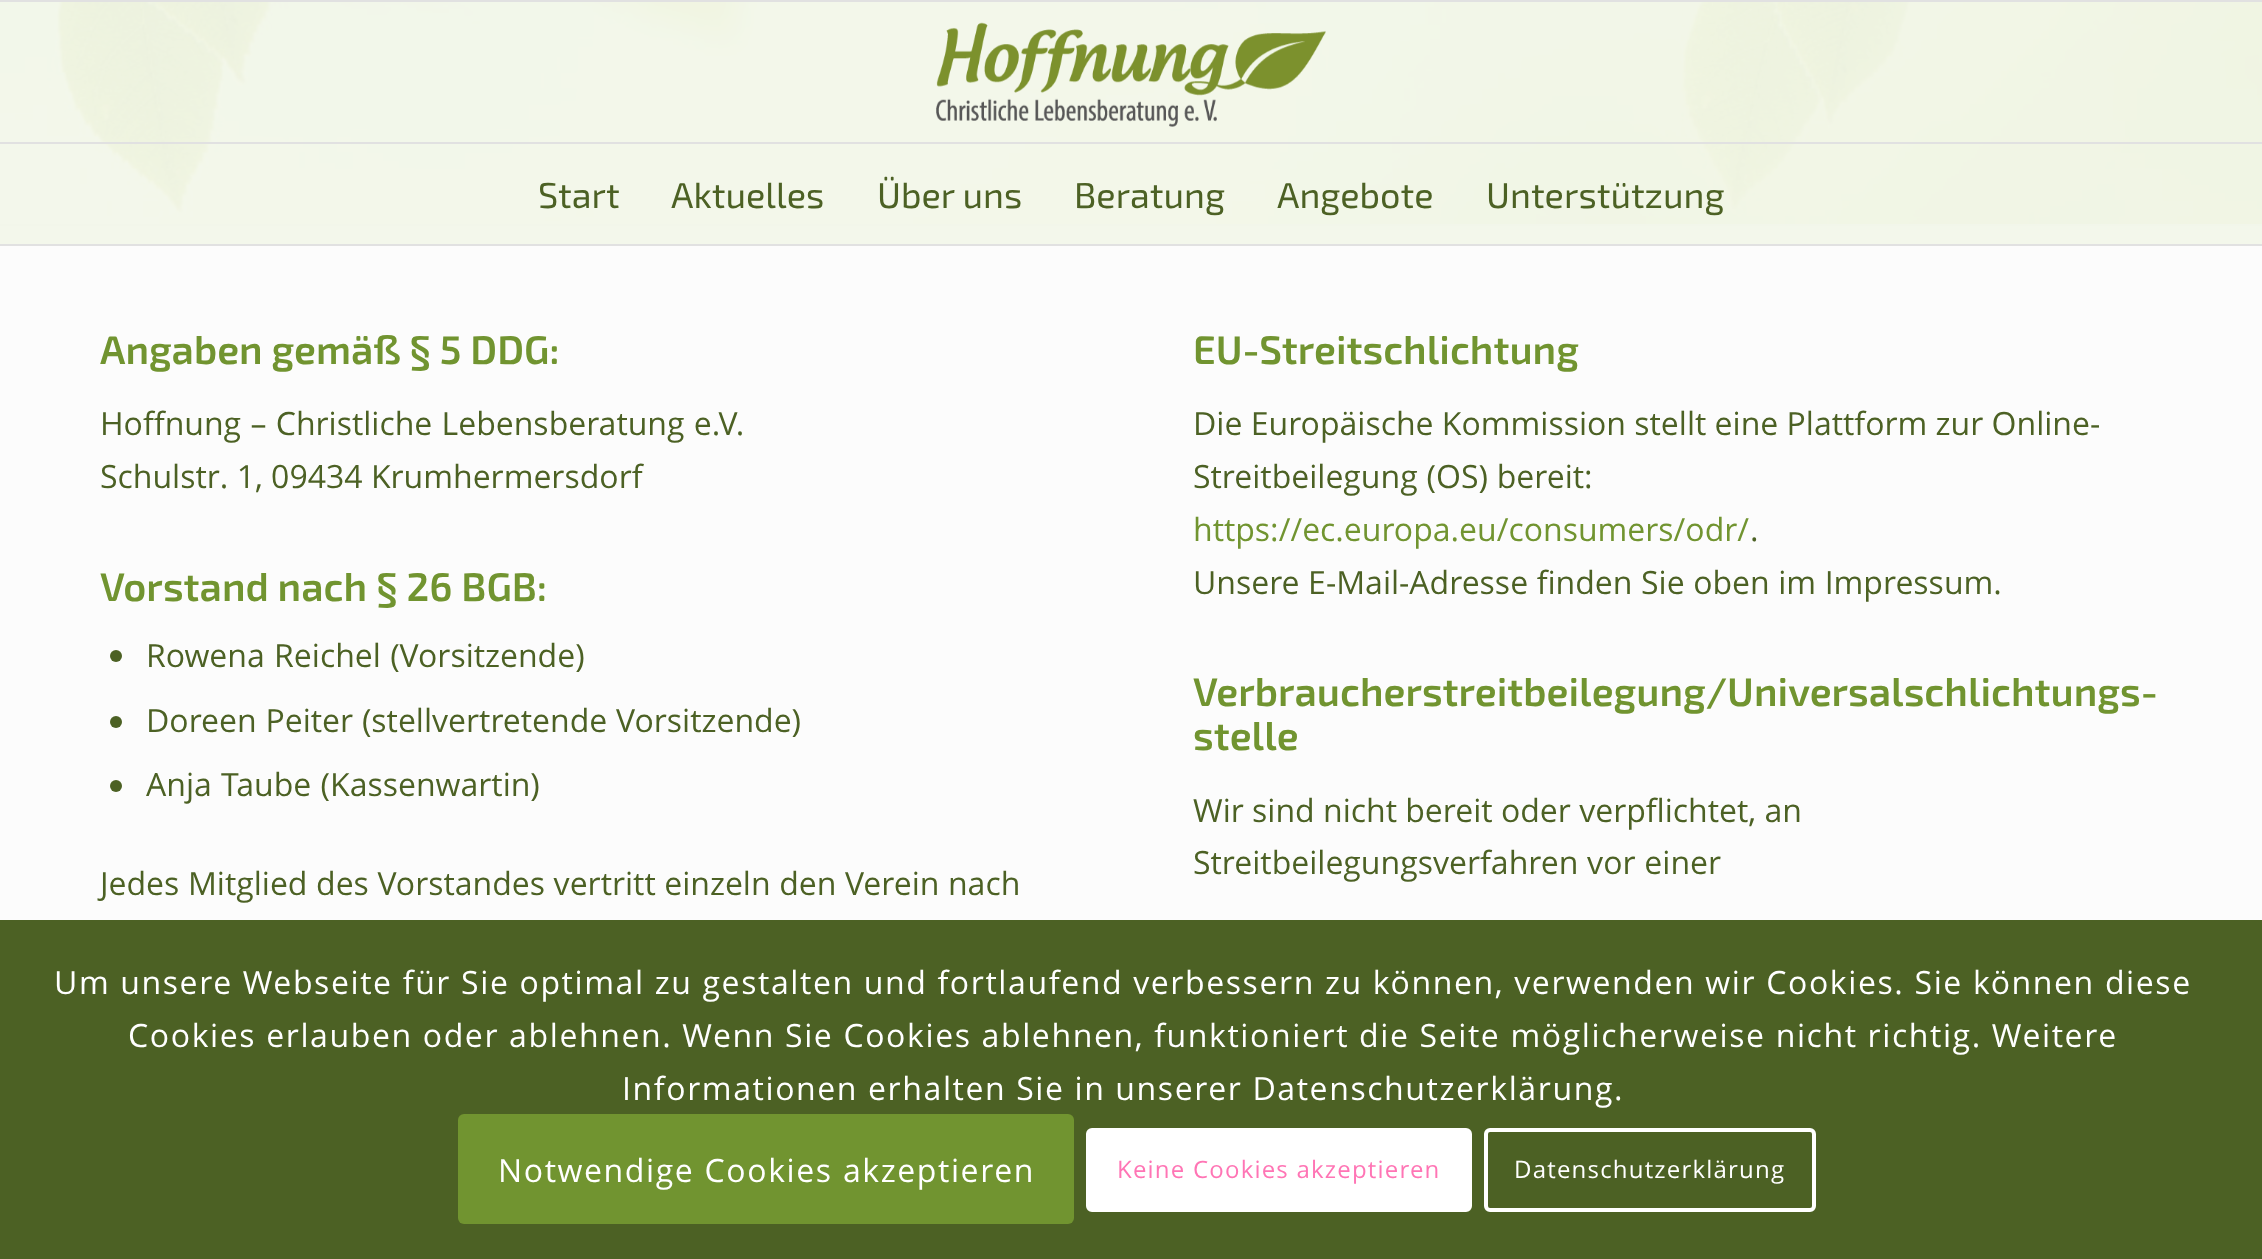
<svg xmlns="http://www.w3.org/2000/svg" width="2262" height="1259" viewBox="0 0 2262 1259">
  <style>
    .t1 { font: 36px 'Exo 2'; fill: #4c6124; }
    .t2 { font: 600 40px 'Exo 2'; fill: #719430; }
    .t3 { font: 32px Open Sans; fill: #4c6124; }
    .t4 { font: 32px Open Sans; fill: #719430; }
    .t5 { font: 32px Open Sans; letter-spacing: 1.6px; fill: #fff; }
    .t6 { font: 24px Open Sans; letter-spacing: 1.2px; fill: #ff75b5; }
    .t7 { font: 24px Open Sans; letter-spacing: 1.2px; fill: #fff; }
  </style>
  <rect width="100%" height="100%" fill="#fff"/>
  <rect x="0" y="0" width="2262" height="2" fill="#e1e1e1"/>
  <rect x="0" y="244" width="2262" height="2" fill="#e1e1e1"/>
  <image x="0" y="2" width="2262" height="222" href="images/2.png"/>
  <image x="936" y="22" width="390" height="105" href="images/1.png"/>
  <rect x="0" y="142" width="2262" height="2" fill="#e1e1e1"/>
  <text x="538" y="208" class="t1">Start</text>
  <text x="671" y="208" class="t1">Aktuelles</text>
  <text x="877" y="208" class="t1">Über uns</text>
  <text x="1074" y="208" class="t1">Beratung</text>
  <text x="1277" y="208" class="t1">Angebote</text>
  <text x="1486" y="208" class="t1">Unterstützung</text>
  <rect x="0" y="246" width="2262" height="674" fill="#fcfcfc"/>
  <rect x="0" y="226" width="2262" height="18" fill="#f3f7eb"/>
  <rect x="0" y="224" width="2262" height="2" fill="#f2f6ea"/>
  <text x="100" y="364" class="t2">Angaben gemäß § 5 DDG:</text>
  <text x="100" y="435" word-spacing="1" class="t3">Hoffnung – Christliche Lebensberatung e.V.</text>
  <text x="100" y="488" class="t3">Schulstr. 1, 09434 Krumhermersdorf</text>
  <text x="100" y="601" class="t2">Vorstand nach § 26 BGB:</text>
  <circle cx="116" cy="656" r="6" fill="#4c6124"/>
  <text x="146" y="667" word-spacing="1" class="t3">Rowena Reichel (Vorsitzende)</text>
  <circle cx="116" cy="722" r="6" fill="#4c6124"/>
  <text x="146" y="732" word-spacing="0.5" class="t3">Doreen Peiter (stellvertretende Vorsitzende)</text>
  <circle cx="116" cy="786" r="6" fill="#4c6124"/>
  <text x="146" y="796" word-spacing="1" class="t3">Anja Taube (Kassenwartin)</text>
  <text x="100" y="895" word-spacing="0.25" class="t3">Jedes Mitglied des Vorstandes vertritt einzeln den Verein nach</text>
  <text x="1193" y="364" class="t2">EU-Streitschlichtung</text>
  <text x="1193" y="435" class="t3">Die Europäische Kommission stellt eine Plattform zur Online-</text>
  <text x="1193" y="488" word-spacing="0.5" class="t3">Streitbeilegung (OS) bereit:</text>
  <text x="1193" y="541" class="t4">https://ec.europa.eu/consumers/odr/</text>
  <text x="1750" y="541" class="t3">.</text>
  <text x="1193" y="594" word-spacing="0.25" class="t3">Unsere E-Mail-Adresse finden Sie oben im Impressum.</text>
  <text x="1193" y="706" class="t2">Verbraucherstreitbeilegung/Universalschlichtungs-</text>
  <text x="1193" y="750" class="t2">stelle</text>
  <text x="1193" y="822" class="t3">Wir sind nicht bereit oder verpflichtet, an</text>
  <text x="1193" y="874" word-spacing="0.5" class="t3">Streitbeilegungsverfahren vor einer</text>
  <rect x="0" y="920" width="2262" height="339" fill="#4c6124"/>
  <text x="54" y="994" word-spacing="0.1" class="t5">Um unsere Webseite für Sie optimal zu gestalten und fortlaufend verbessern zu können, verwenden wir Cookies. Sie können diese</text>
  <text x="128" y="1047" word-spacing="0.1" class="t5">Cookies erlauben oder ablehnen. Wenn Sie Cookies ablehnen, funktioniert die Seite möglicherweise nicht richtig. Weitere</text>
  <text x="622" y="1100" class="t5">Informationen erhalten Sie in unserer Datenschutzerklärung.</text>
  <rect x="458" y="1114" width="616" height="110" rx="6" fill="#719430"/>
  <text x="498" y="1182" word-spacing="0.25" class="t5">Notwendige Cookies akzeptieren</text>
  <rect x="1088" y="1130" width="382" height="80" rx="4" fill="#fff" stroke="#fff" stroke-width="4"/>
  <text x="1117" y="1178" class="t6">Keine Cookies akzeptieren</text>
  <rect x="1486" y="1130" width="328" height="80" rx="4" fill="none" stroke="#fff" stroke-width="4"/>
  <text x="1514" y="1178" class="t7">Datenschutzerklärung</text>
</svg>
